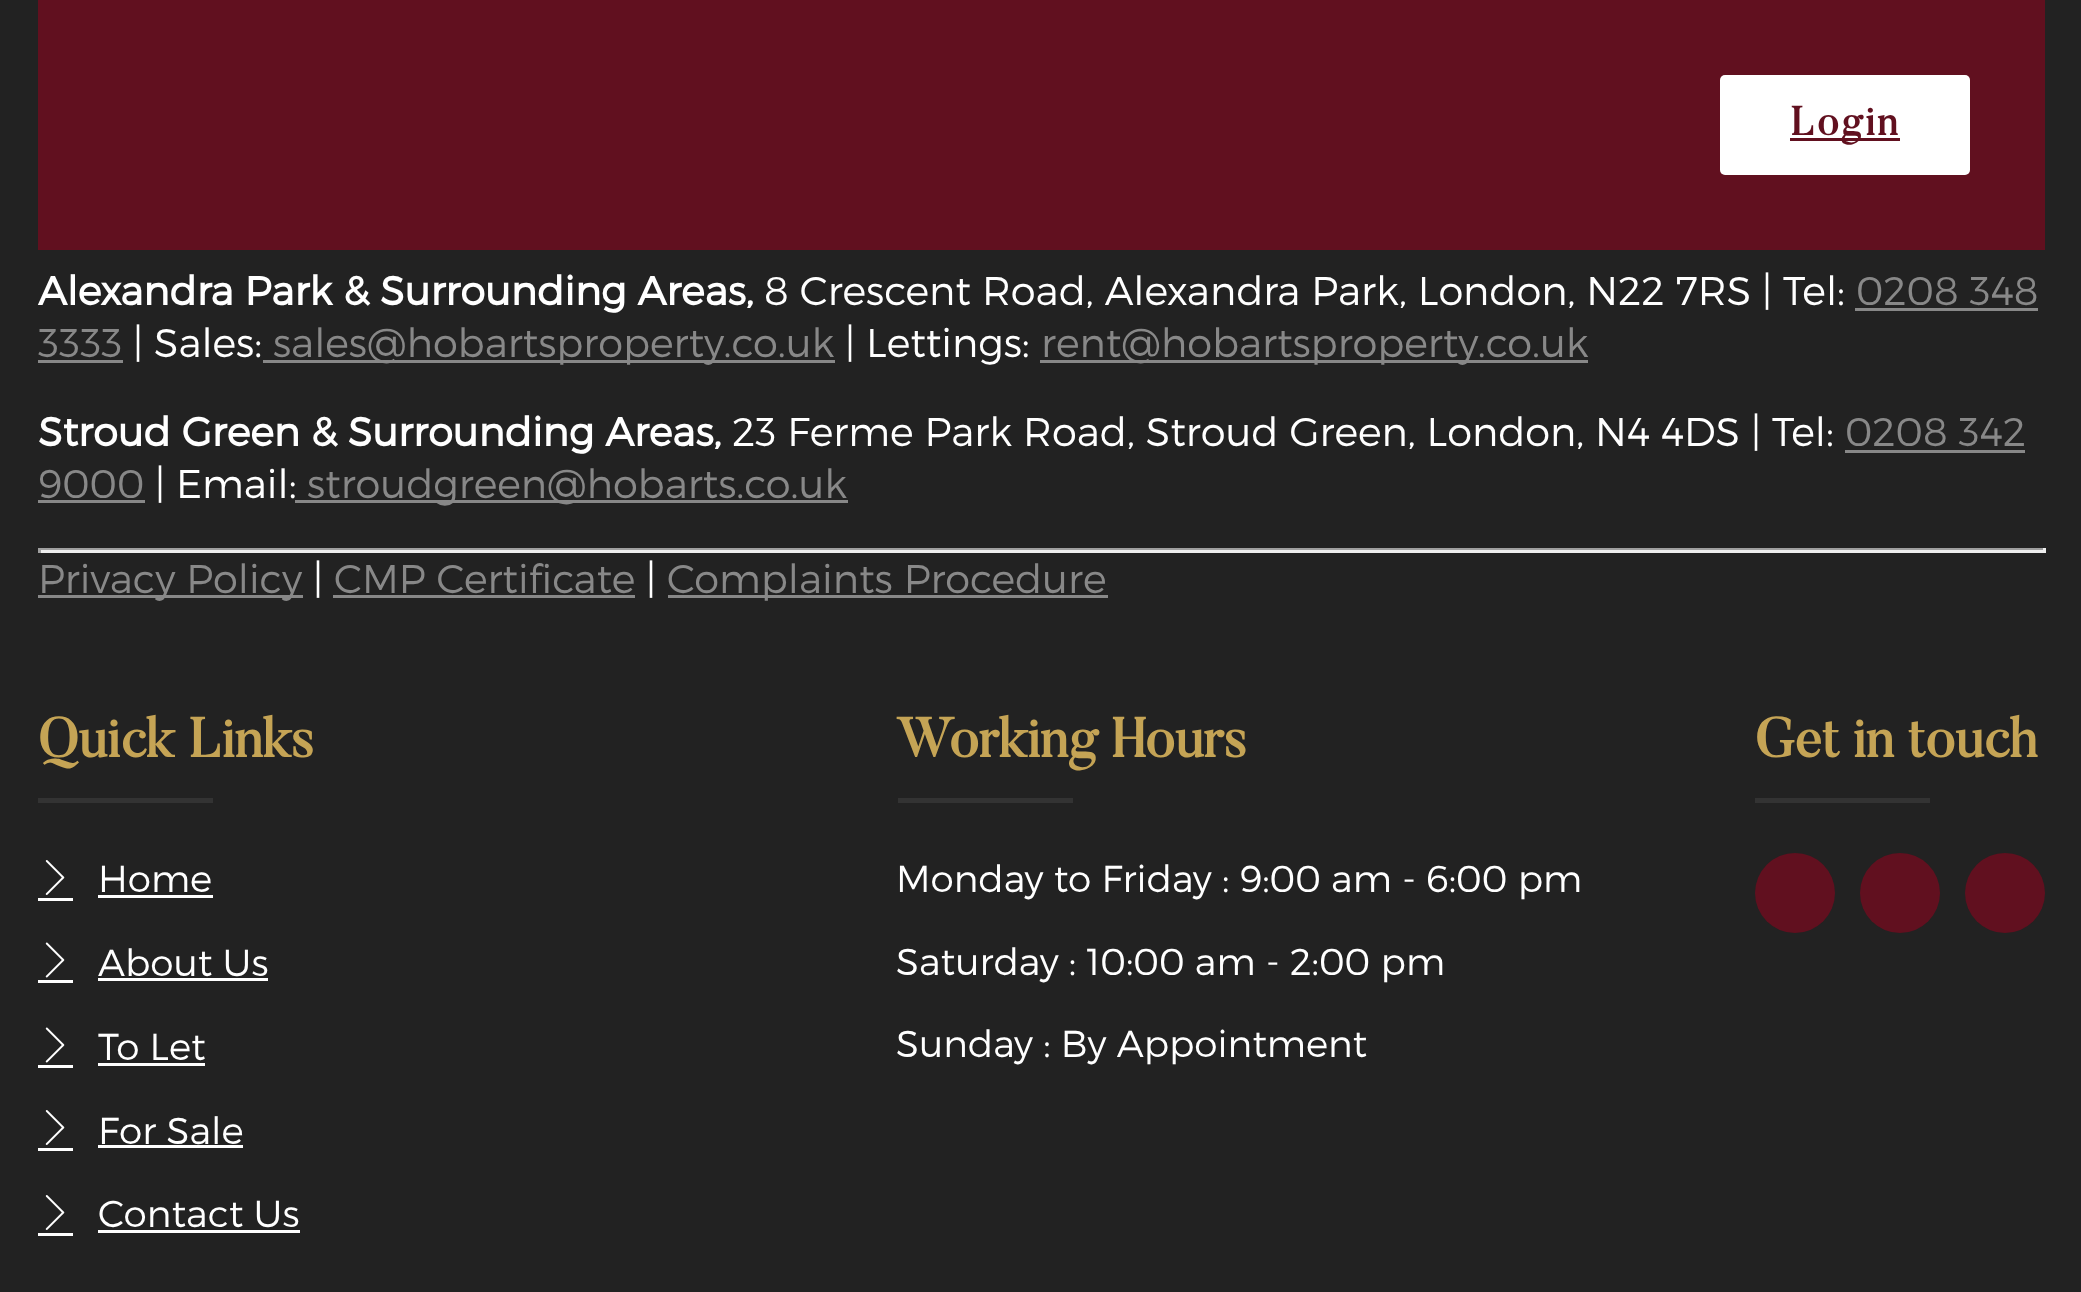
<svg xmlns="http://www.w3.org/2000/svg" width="2081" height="1292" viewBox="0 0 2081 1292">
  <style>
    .t1 { font: bold 40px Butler; letter-spacing: 2.5px; fill: #61101f; }
    .t2 { font: bold 40px Montserrat; fill: #fff; }
    .t3 { font: 300 40px Montserrat; fill: #fff; }
    .t4 { font: 300 40px Montserrat; fill: #888; }
    .t5 { font: bold 55px Butler; fill: #c5a455; }
    .t6 { font: 300 37.5px Montserrat; fill: #fff; }
  </style>
  <rect width="100%" height="100%" fill="#222"/>
  <rect x="38" y="0" width="2007" height="250" fill="#61101f"/>
  <rect x="1720" y="75" width="250" height="100" rx="5" fill="#fff"/>
  <rect x="1790" y="138" width="110" height="3" fill="#61101f"/>
  <text x="1790" y="135" class="t1">Login</text>
  <text x="38" y="305" class="t2">Alexandra Park &amp; Surrounding Areas,</text>
  <text x="764" y="305" class="t3">8 Crescent Road, Alexandra Park, London, N22 7RS | Tel:</text>
  <text x="1856" y="305" class="t4">0208 348</text>
  <rect x="1855" y="308" width="183" height="3" fill="#888"/>
  <text x="38" y="357" class="t4">3333</text>
  <rect x="38" y="360" width="85" height="3" fill="#888"/>
  <text x="133" y="357" class="t3">| Sales:</text>
  <rect x="263" y="360" width="572" height="3" fill="#888"/>
  <text x="273" y="357" class="t4">sales@hobartsproperty.co.uk</text>
  <text x="845" y="357" class="t3">| Lettings:</text>
  <rect x="1040" y="360" width="548" height="3" fill="#888"/>
  <text x="1041" y="357" class="t4">rent@hobartsproperty.co.uk</text>
  <text x="38" y="446" class="t2">Stroud Green &amp; Surrounding Areas,</text>
  <text x="732" y="446" class="t3">23 Ferme Park Road, Stroud Green, London, N4 4DS | Tel:</text>
  <text x="1845" y="446" class="t4">0208 342</text>
  <rect x="1845" y="450" width="180" height="3" fill="#888"/>
  <text x="38" y="498" class="t4">9000</text>
  <rect x="38" y="500" width="107" height="3" fill="#888"/>
  <text x="155" y="498" class="t3">| Email:</text>
  <rect x="295" y="500" width="553" height="3" fill="#888"/>
  <text x="307" y="498" class="t4">stroudgreen@hobarts.co.uk</text>
  <rect x="38" y="548" width="2007" height="2" fill="#9f9f9f"/>
  <rect x="2043" y="548" width="3" height="5" fill="#eee"/>
  <rect x="38" y="550" width="2007" height="3" fill="#eee"/>
  <rect x="38" y="548" width="3" height="5" fill="#9f9f9f"/>
  <rect x="38" y="595" width="265" height="3" fill="#888"/>
  <text x="38" y="593" class="t4">Privacy Policy</text>
  <text x="313" y="593" class="t3">|</text>
  <text x="334" y="593" class="t4">CMP Certificate</text>
  <rect x="333" y="595" width="302" height="3" fill="#888"/>
  <text x="646" y="593" class="t3">|</text>
  <rect x="668" y="595" width="440" height="3" fill="#888"/>
  <text x="667" y="593" class="t4">Complaints Procedure</text>
  <text x="38" y="757" class="t5">Quick Links</text>
  <rect x="38" y="798" width="175" height="5" fill="#333"/>
  <rect x="38" y="898" width="35" height="3" fill="#fff"/>
  <image x="45" y="860" width="20" height="35" href="images/1.png"/>
  <text x="98" y="892" class="t6">Home</text>
  <rect x="98" y="895" width="115" height="3" fill="#fff"/>
  <rect x="38" y="980" width="35" height="3" fill="#fff"/>
  <image x="45" y="942" width="20" height="36" href="images/2.png"/>
  <text x="98" y="976" class="t6">About Us</text>
  <rect x="98" y="978" width="170" height="3" fill="#fff"/>
  <rect x="38" y="1065" width="35" height="3" fill="#fff"/>
  <image x="45" y="1027" width="20" height="36" href="images/2.png"/>
  <text x="98" y="1060" class="t6">To Let</text>
  <rect x="98" y="1063" width="107" height="3" fill="#fff"/>
  <rect x="38" y="1148" width="35" height="3" fill="#fff"/>
  <image x="45" y="1110" width="20" height="35" href="images/1.png"/>
  <text x="98" y="1144" class="t6">For Sale</text>
  <rect x="98" y="1145" width="145" height="3" fill="#fff"/>
  <rect x="38" y="1233" width="35" height="3" fill="#fff"/>
  <image x="45" y="1195" width="20" height="35" href="images/1.png"/>
  <text x="98" y="1227" class="t6">Contact Us</text>
  <rect x="98" y="1230" width="202" height="3" fill="#fff"/>
  <text x="896" y="757" class="t5">Working Hours</text>
  <rect x="898" y="798" width="175" height="5" fill="#333"/>
  <text x="896" y="892" class="t6">Monday to Friday : 9:00 am - 6:00 pm</text>
  <text x="896" y="975" class="t6">Saturday : 10:00 am - 2:00 pm</text>
  <text x="896" y="1057" class="t6">Sunday : By Appointment</text>
  <text x="1755" y="757" class="t5">Get in touch</text>
  <rect x="1755" y="798" width="175" height="5" fill="#333"/>
  <circle cx="1795" cy="893" r="40" fill="#61101f"/>
  <circle cx="1900" cy="893" r="40" fill="#61101f"/>
  <circle cx="2005" cy="893" r="40" fill="#61101f"/>
</svg>
